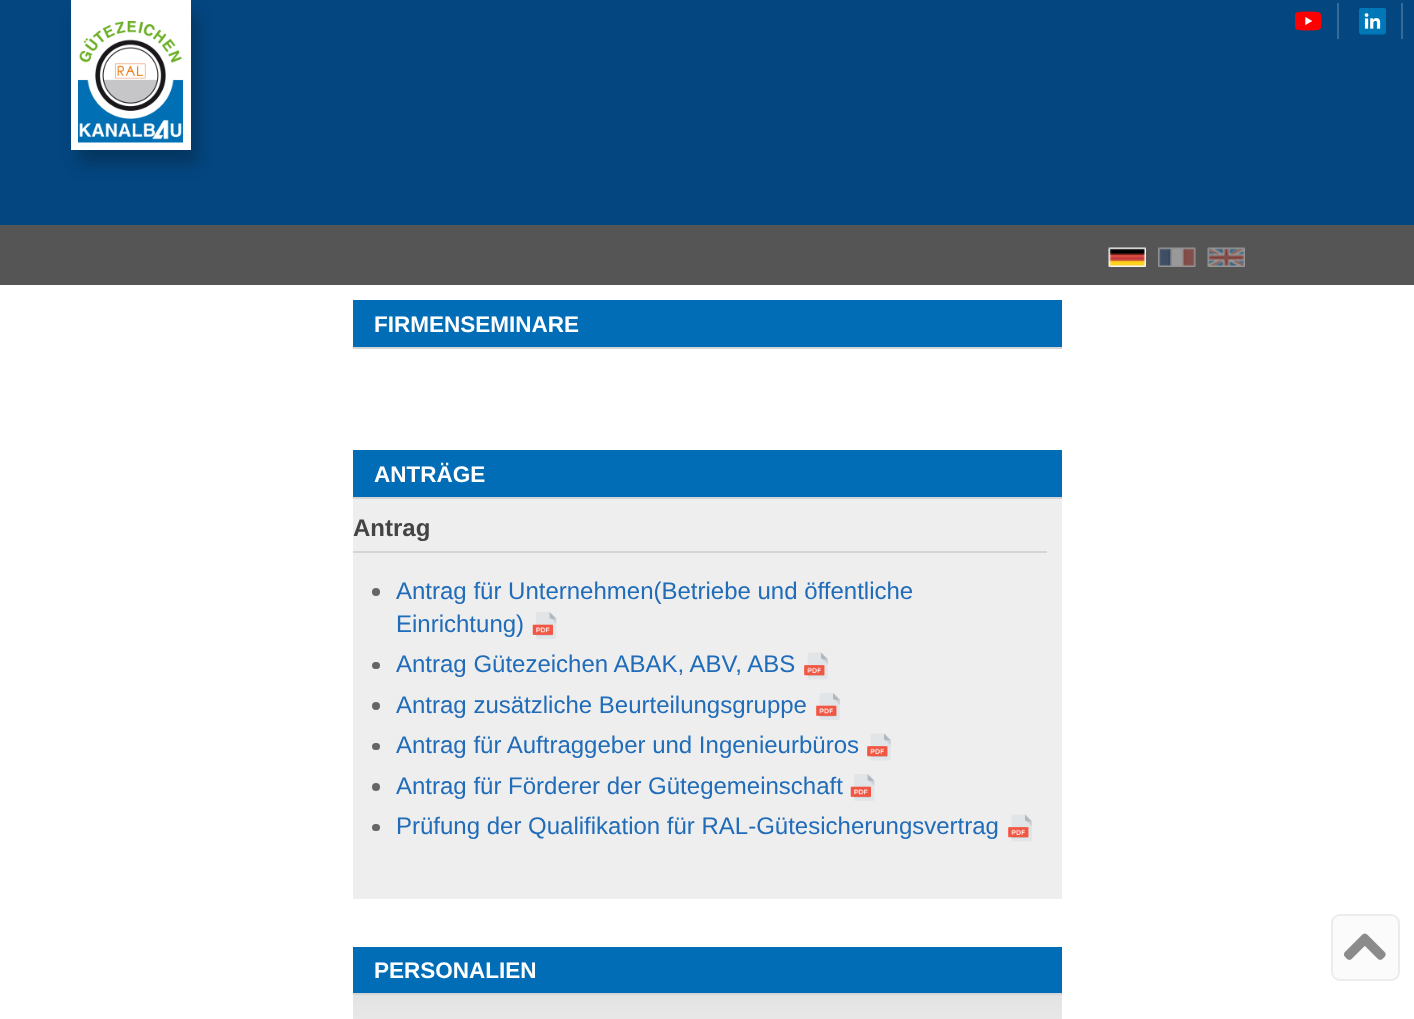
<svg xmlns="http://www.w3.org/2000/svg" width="1414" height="1019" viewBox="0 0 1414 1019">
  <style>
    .t1 { font: bold 22.5px Liberation Sans; fill: #fff; }
    .t2 { font: bold 24px Liberation Sans; fill: #444; }
    .t3 { font: 24px Liberation Sans; fill: #206cb9; }
  </style>
  <defs>
    <linearGradient id="g1" gradientUnits="userSpaceOnUse" x1="353" y1="995" x2="353" y2="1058"><stop offset="0" stop-color="#e3e3e3"/><stop offset="1" stop-color="#efefef"/></linearGradient>
  </defs>
  <rect width="100%" height="100%" fill="#fff"/>
  <rect x="0" y="0" width="1414" height="225" fill="#044680"/>
  <rect x="78" y="14" width="120" height="150" fill="#0410134a" filter="blur(7.5px)"/>
  <rect x="71" y="0" width="120" height="150" fill="#fff"/>
  <image x="78" y="21" width="105" height="122" href="images/1.png"/>
  <rect x="1337" y="3" width="2" height="36" fill="#366b99"/>
  <image x="1295" y="11" width="27" height="20" href="images/2.png"/>
  <rect x="1401" y="3" width="2" height="36" fill="#366b99"/>
  <image x="1359" y="8" width="27" height="27" href="images/3.png"/>
  <rect x="0" y="225" width="1414" height="60" fill="#555"/>
  <image x="1108" y="247" width="38" height="20" href="images/4.png"/>
  <image x="1158" y="247" width="38" height="20" href="images/5.png"/>
  <image x="1207" y="247" width="38" height="20" href="images/6.png"/>
  <rect x="353" y="300" width="709" height="47" fill="#006db6"/>
  <rect x="353" y="347" width="709" height="2" fill="#d5d5d5"/>
  <text x="374" y="332" class="t1">FIRMENSEMINARE</text>
  <rect x="353" y="450" width="709" height="47" fill="#006db6"/>
  <rect x="353" y="497" width="709" height="2" fill="#d5d5d5"/>
  <text x="374" y="482" class="t1">ANTRÄGE</text>
  <rect x="353" y="499" width="709" height="400" fill="#eee"/>
  <rect x="353" y="551" width="694" height="2" fill="#d5d5d5"/>
  <text x="353" y="536" class="t2">Antrag</text>
  <circle cx="376" cy="592" r="4" fill="#666"/>
  <text x="396" y="599" class="t3">Antrag für Unternehmen(Betriebe und öffentliche</text>
  <text x="396" y="632" class="t3">Einrichtung)</text>
  <image x="532" y="612" width="25" height="27" href="images/7.png"/>
  <rect x="372" y="662" width="8" height="7" rx="3.5" fill="#666"/>
  <text x="396" y="672" class="t3">Antrag Gütezeichen ABAK, ABV, ABS</text>
  <image x="804" y="652" width="24" height="28" href="images/8.png"/>
  <circle cx="376" cy="706" r="4" fill="#666"/>
  <text x="396" y="713" class="t3">Antrag zusätzliche Beurteilungsgruppe</text>
  <image x="816" y="693" width="24" height="27" href="images/9.png"/>
  <rect x="372" y="743" width="8" height="7" rx="3.5" fill="#666"/>
  <text x="396" y="753" class="t3">Antrag für Auftraggeber und Ingenieurbüros</text>
  <image x="867" y="733" width="24" height="28" href="images/8.png"/>
  <circle cx="376" cy="787" r="4" fill="#666"/>
  <text x="396" y="794" class="t3">Antrag für Förderer der Gütegemeinschaft</text>
  <image x="850" y="774" width="25" height="27" href="images/7.png"/>
  <rect x="372" y="824" width="8" height="7" rx="3.5" fill="#666"/>
  <text x="396" y="834" class="t3">Prüfung der Qualifikation für RAL-Gütesicherungsvertrag</text>
  <image x="1008" y="814" width="24" height="28" href="images/8.png"/>
  <rect x="353" y="947" width="709" height="46" fill="#006db6"/>
  <rect x="353" y="993" width="709" height="2" fill="#d5d5d5"/>
  <text x="374" y="978" class="t1">PERSONALIEN</text>
  <rect x="353" y="995" width="709" height="24" fill="url(#g1)"/>
  <rect x="1332" y="915" width="67" height="65" rx="8" fill="#fbfbfb" stroke="#ececec" stroke-width="2"/>
  <image x="1343" y="933" width="43" height="27" href="images/10.png"/>
</svg>
